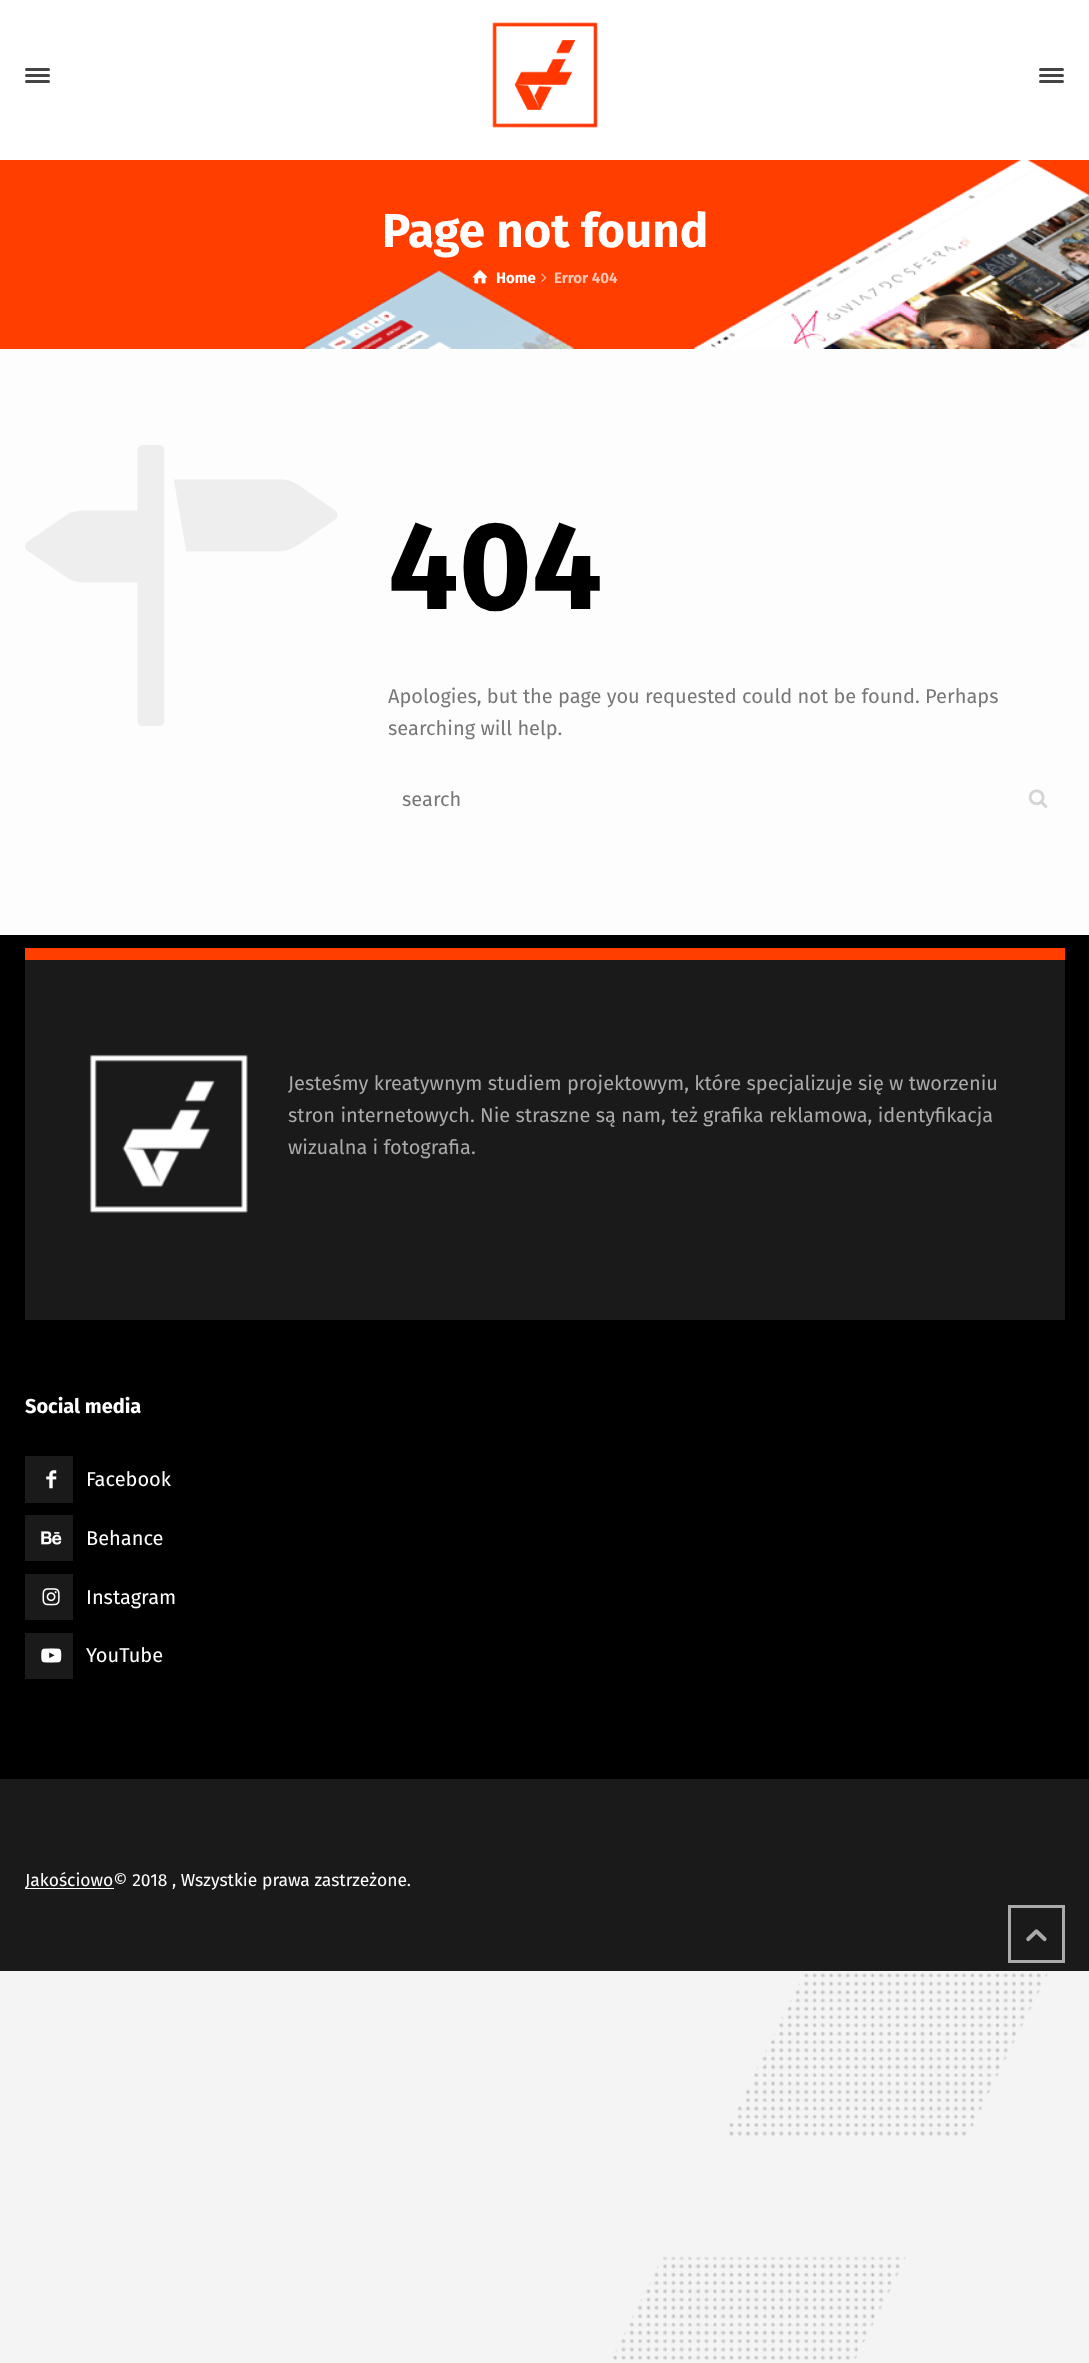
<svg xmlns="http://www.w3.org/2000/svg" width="1089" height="2363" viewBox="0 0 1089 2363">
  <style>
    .t1 { font: bold 47.5px Fira Sans; fill: #fff; }
    .t2 { font: bold 15px Fira Sans; fill: #fff; }
    .t3 { font: bold 15px Fira Sans; fill: #ffc5b3; }
    .t4 { font: bold 125px Fira Sans; fill: #000; }
    .t5 { font: 20px Fira Sans; fill: #777; }
    .t6 { font: 20px Fira Sans; fill: #aaa; }
    .t7 { font: bold 20px Fira Sans; fill: #fff; }
    .t8 { font: 20px Fira Sans; fill: #fff; }
    .t9 { font: 17.5px Fira Sans; fill: #fff; }
  </style>
  <rect width="100%" height="100%" fill="#f4f4f4"/>
  <image x="613" y="1973" width="435" height="387" href="images/1.png"/>
  <rect x="0" y="0" width="1089" height="160" fill="#fff"/>
  <rect x="25" y="68" width="25" height="3" rx="1.5" fill="#444"/>
  <rect x="25" y="74" width="25" height="3" rx="1.5" fill="#444"/>
  <rect x="25" y="80" width="25" height="3" rx="1.5" fill="#444"/>
  <image x="492" y="22" width="106" height="106" href="images/2.png"/>
  <rect x="1039" y="68" width="25" height="3" rx="1.5" fill="#444"/>
  <rect x="1039" y="74" width="25" height="3" rx="1.5" fill="#444"/>
  <rect x="1039" y="80" width="25" height="3" rx="1.5" fill="#444"/>
  <rect x="0" y="160" width="301" height="189" fill="#ff3e00"/>
  <image x="301" y="160" width="788" height="189" href="images/3.png"/>
  <text x="382" y="247" class="t1">Page not found</text>
  <image x="472" y="270" width="16" height="14" href="images/4.png"/>
  <text x="496" y="283" class="t2">Home</text>
  <image x="541" y="273" width="6" height="9" href="images/5.png"/>
  <text x="554" y="283" class="t3">Error 404</text>
  <rect x="0" y="349" width="1089" height="586" fill="#fdfdfd"/>
  <image x="25" y="445" width="313" height="281" href="images/6.png"/>
  <text x="388" y="609" class="t4">404</text>
  <text x="388" y="703" class="t5">Apologies, but the page you requested could not be found. Perhaps</text>
  <text x="388" y="735" class="t5">searching will help.</text>
  <text x="402" y="806" class="t5">search</text>
  <image x="1028" y="789" width="20" height="19" href="images/7.png"/>
  <rect x="0" y="935" width="1089" height="844" fill="#000"/>
  <rect x="25" y="960" width="1040" height="360" fill="#1a1a1a"/>
  <rect x="25" y="948" width="1040" height="12" fill="#ff3e00"/>
  <image x="89" y="1054" width="159" height="159" href="images/8.png"/>
  <text x="288" y="1090" class="t6">Jesteśmy kreatywnym studiem projektowym, które specjalizuje się w tworzeniu</text>
  <text x="288" y="1122" class="t6">stron internetowych. Nie straszne są nam, też grafika reklamowa, identyfikacja</text>
  <text x="288" y="1154" class="t6">wizualna i fotografia.</text>
  <text x="25" y="1413" class="t7">Social media</text>
  <rect x="25" y="1456" width="48" height="47" fill="#1a1a1a"/>
  <image x="46" y="1470" width="11" height="19" href="images/9.png"/>
  <text x="86" y="1486" class="t8">Facebook</text>
  <rect x="25" y="1515" width="48" height="46" fill="#1a1a1a"/>
  <image x="41" y="1531" width="21" height="14" href="images/10.png"/>
  <text x="86" y="1545" class="t8">Behance</text>
  <rect x="25" y="1574" width="48" height="46" fill="#1a1a1a"/>
  <image x="42" y="1588" width="18" height="18" href="images/11.png"/>
  <text x="86" y="1604" class="t8">Instagram</text>
  <rect x="25" y="1633" width="48" height="46" fill="#1a1a1a"/>
  <image x="41" y="1648" width="21" height="15" href="images/12.png"/>
  <text x="86" y="1662" class="t8">YouTube</text>
  <rect x="0" y="1779" width="1089" height="192" fill="#1a1a1a"/>
  <rect x="25" y="1888" width="89" height="1" fill="#fff"/>
  <text x="25" y="1886" class="t9">Jakościowo© 2018 , Wszystkie prawa zastrzeżone.</text>
  <rect x="1009.5" y="1906.5" width="54" height="55" fill="none" stroke="#aaa" stroke-width="3"/>
  <image x="1026" y="1929" width="21" height="13" href="images/13.png"/>
</svg>
